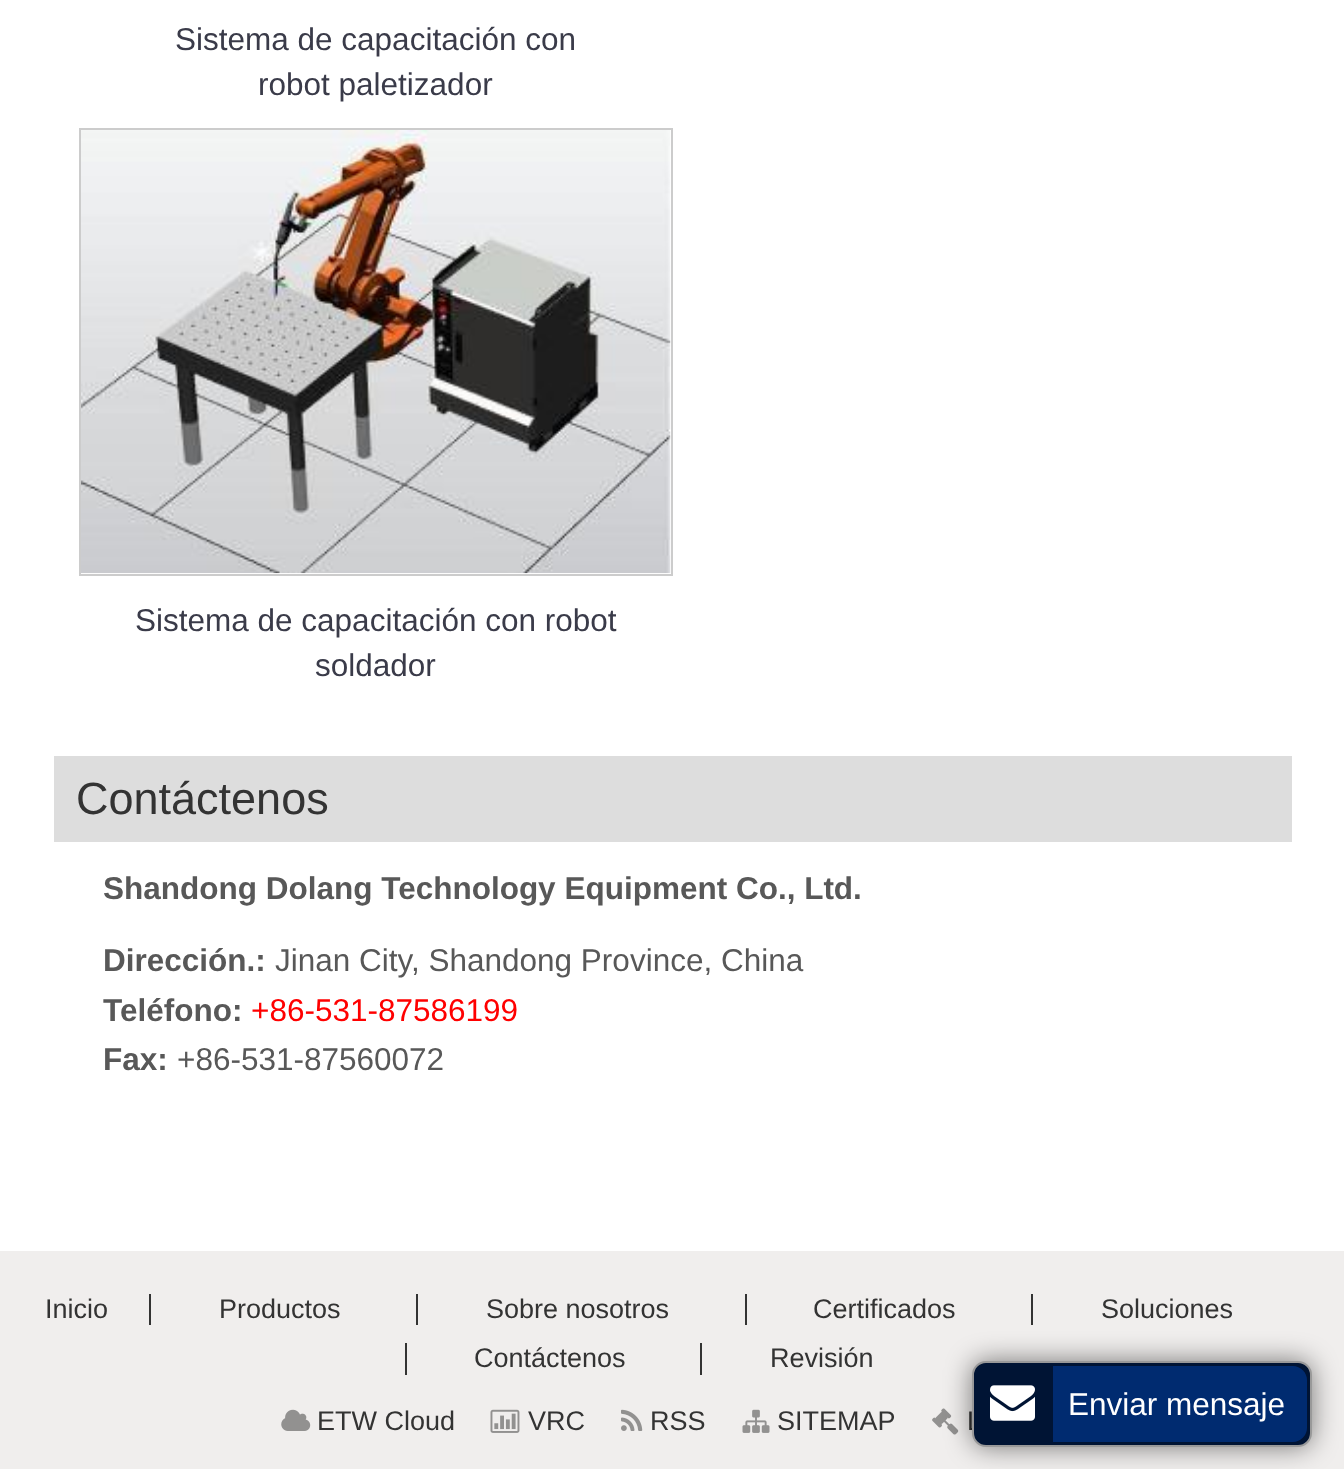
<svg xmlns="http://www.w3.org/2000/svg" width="1344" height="1469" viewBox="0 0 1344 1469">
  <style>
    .t1 { font: 31.5px Liberation Sans; fill: #3a3b49; }
    .t2 { font: 45px Liberation Sans; fill: #333; }
    .t3 { font: bold 31.5px Liberation Sans; fill: #585858; }
    .t4 { font: 31.5px Liberation Sans; fill: #585858; }
    .t5 { font: 31.5px Liberation Sans; fill: #f00; }
    .t6 { font: 27px Liberation Sans; fill: #333; }
    .t7 { font: 31.5px Liberation Sans; fill: #fff; }
  </style>
  <rect width="100%" height="100%" fill="#fff"/>
  <text x="175" y="50" class="t1">Sistema de capacitación con</text>
  <text x="258" y="95" class="t1">robot paletizador</text>
  <rect x="80" y="129" width="592" height="446" fill="none" stroke="#ccc" stroke-width="2"/>
  <image x="81" y="130" width="590" height="444" href="images/1.png"/>
  <text x="135" y="631" class="t1">Sistema de capacitación con robot</text>
  <text x="315" y="676" class="t1">soldador</text>
  <rect x="54" y="756" width="1238" height="86" fill="#ddd"/>
  <text x="76" y="814" class="t2">Contáctenos</text>
  <text x="103" y="899" class="t3">Shandong Dolang Technology Equipment Co., Ltd.</text>
  <text x="103" y="971" class="t3">Dirección.:</text>
  <text x="275" y="971" class="t4">Jinan City, Shandong Province, China</text>
  <text x="103" y="1021" class="t3">Teléfono:</text>
  <text x="251" y="1021" class="t5">+86-531-87586199</text>
  <text x="103" y="1070" class="t3">Fax:</text>
  <text x="177" y="1070" class="t4">+86-531-87560072</text>
  <rect x="0" y="1251" width="1344" height="218" fill="#f0eeed"/>
  <text x="45" y="1318" class="t6">Inicio</text>
  <text x="219" y="1318" class="t6">Productos</text>
  <rect x="149" y="1294" width="2" height="31" fill="#333"/>
  <text x="486" y="1318" class="t6">Sobre nosotros</text>
  <rect x="416" y="1294" width="2" height="31" fill="#333"/>
  <text x="813" y="1318" class="t6">Certificados</text>
  <rect x="745" y="1294" width="2" height="31" fill="#333"/>
  <text x="1101" y="1318" class="t6">Soluciones</text>
  <rect x="1031" y="1294" width="2" height="31" fill="#333"/>
  <text x="474" y="1367" class="t6">Contáctenos</text>
  <rect x="405" y="1343" width="2" height="32" fill="#333"/>
  <text x="770" y="1367" class="t6">Revisión</text>
  <rect x="700" y="1343" width="2" height="32" fill="#333"/>
  <image x="281" y="1409" width="30" height="22" href="images/2.png"/>
  <text x="317" y="1430" class="t6">ETW Cloud</text>
  <image x="490" y="1409" width="30" height="24" href="images/3.png"/>
  <text x="528" y="1430" class="t6">VRC</text>
  <image x="621" y="1409" width="22" height="22" href="images/4.png"/>
  <text x="650" y="1430" class="t6">RSS</text>
  <image x="742" y="1409" width="28" height="24" href="images/5.png"/>
  <text x="777" y="1430" class="t6">SITEMAP</text>
  <image x="932" y="1408" width="27" height="27" href="images/6.png"/>
  <text x="967" y="1430" class="t6">L</text>
  <rect x="972" y="1361" width="340" height="86" rx="14" fill="#00000080" filter="blur(13.5px)"/>
  <rect x="973" y="1362" width="338" height="84" rx="13" fill="#001434" stroke="#999" stroke-width="2"/>
  <image x="990" y="1385" width="45" height="36" href="images/7.png"/>
  <path d="M1053 1366H1293C1300.5 1366 1307 1372.5 1307 1380V1428C1307 1435.5 1300.5 1442 1293 1442H1053Z" fill="#002b70"/>
  <text x="1068" y="1415" class="t7">Enviar mensaje</text>
</svg>
